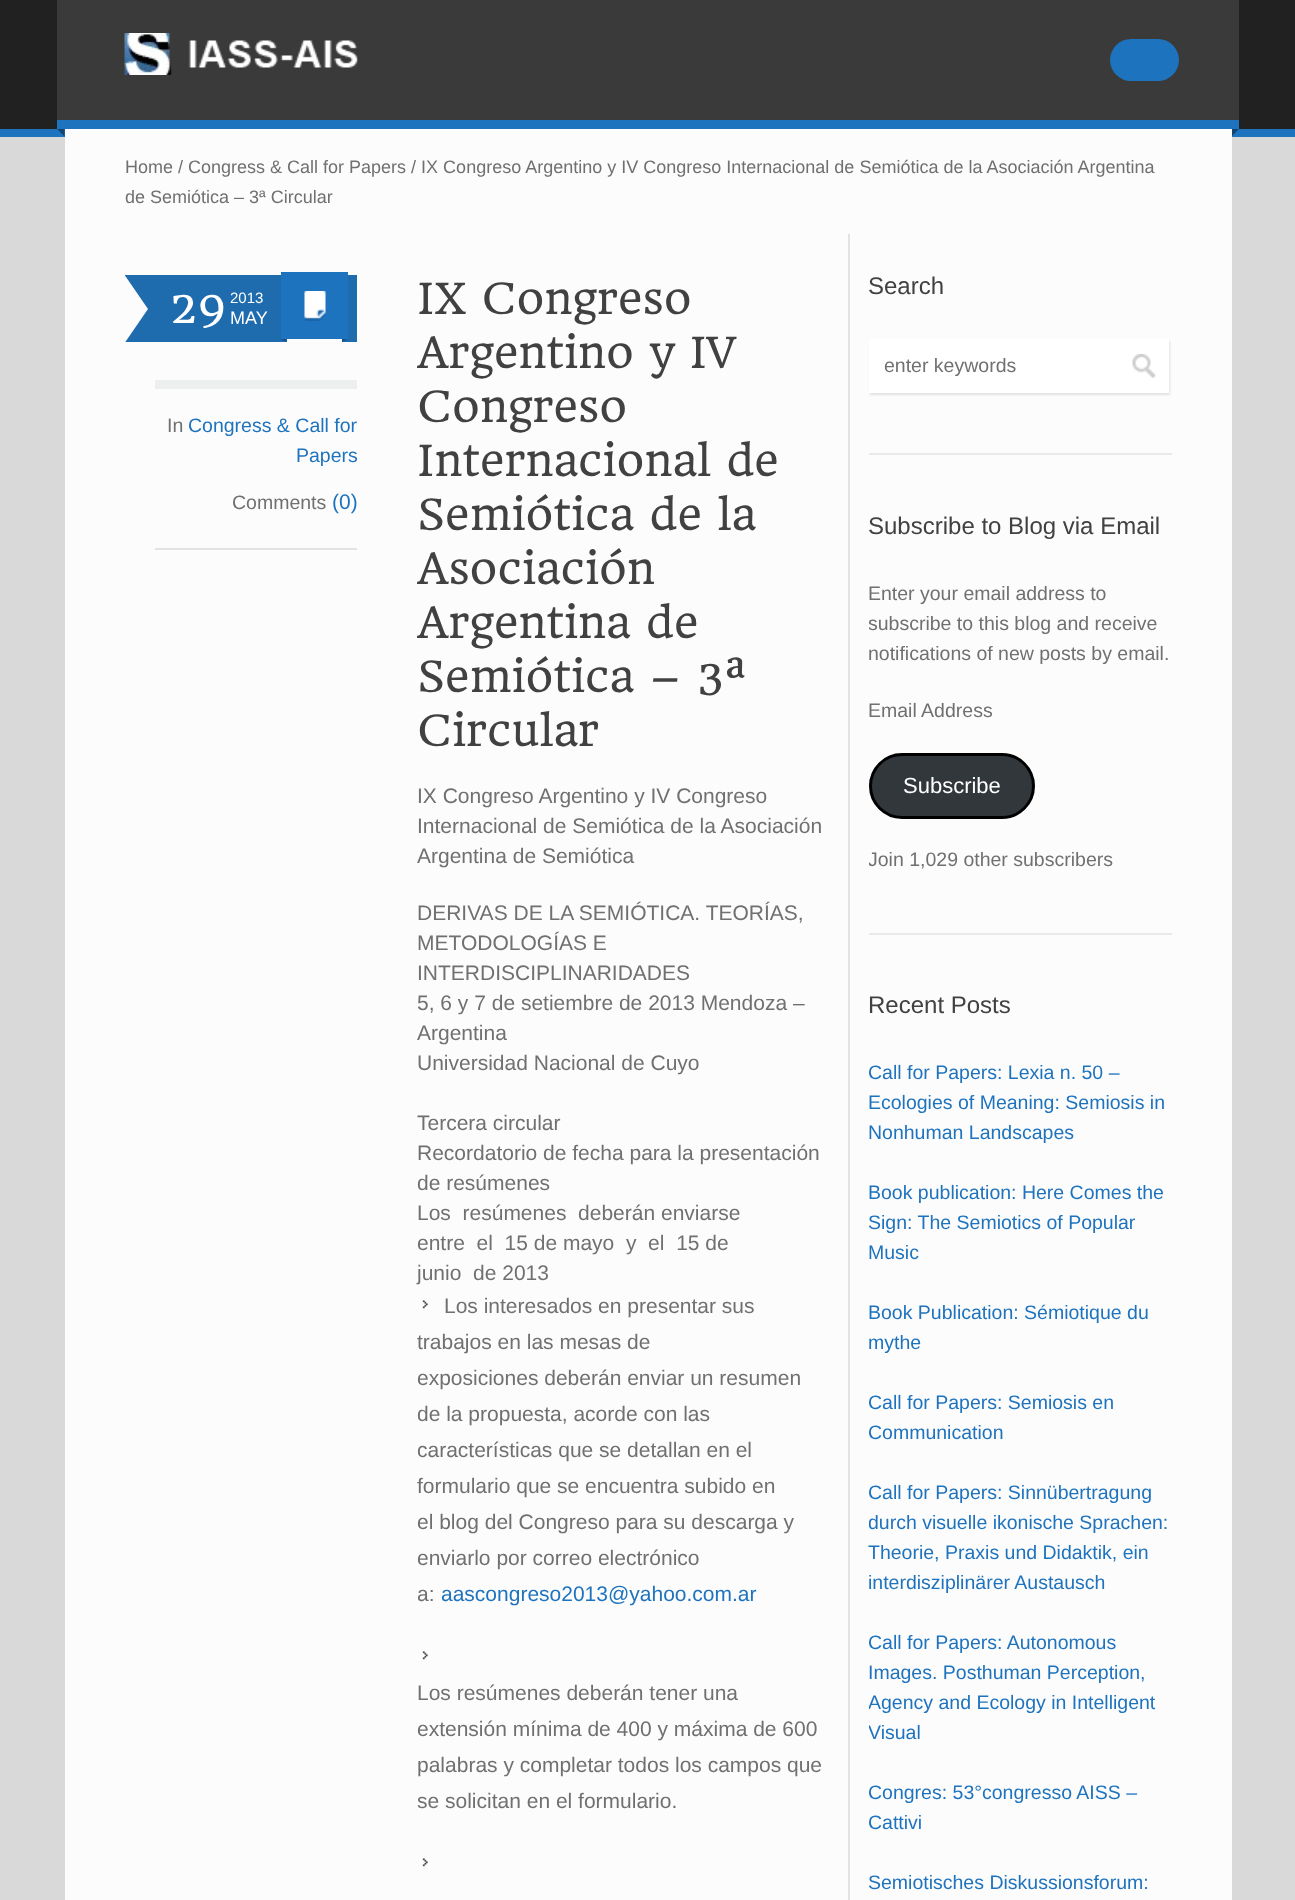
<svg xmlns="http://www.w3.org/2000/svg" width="1295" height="1900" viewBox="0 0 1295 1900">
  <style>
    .t1 { font: 18px Liberation Sans; fill: #707070; }
    .t2 { font: 42px HeadlandOne; fill: #fff; }
    .t3 { font: 15px Liberation Sans; fill: #fff; }
    .t4 { font: 18px Liberation Sans; fill: #fff; }
    .t5 { font: 19.5px Liberation Sans; fill: #707070; }
    .t6 { font: 19.5px Liberation Sans; fill: #1e73be; }
    .t7 { font: 21px Liberation Sans; fill: #1e73be; }
    .t8 { font: 42px HeadlandOne; fill: #414141; }
    .t9 { font: 21px Liberation Sans; fill: #707070; }
    .t10 { font: 24px Liberation Sans; fill: #414141; }
    .t11 { font: 22px Liberation Sans; fill: #fff; }
  </style>
  <defs>
    <clipPath id="clip1"><rect x="125" y="272" width="232" height="307"/></clipPath>
    <clipPath id="clip2"><rect x="869" y="455" width="303" height="421"/></clipPath>
    <clipPath id="clip3"><rect x="869" y="935" width="303" height="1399"/></clipPath>
  </defs>
  <rect width="100%" height="100%" fill="#d9d9d9"/>
  <rect x="0" y="0" width="1295" height="129" fill="#212121"/>
  <rect x="0" y="129" width="1295" height="8" fill="#1e73be"/>
  <rect x="57" y="0" width="1182" height="120" fill="#3a3a3a"/>
  <rect x="57" y="120" width="1182" height="9" fill="#1e73be"/>
  <image x="124" y="33" width="234" height="42" href="images/1.png"/>
  <rect x="1110" y="39" width="69" height="42" rx="21" fill="#1e73be"/>
  <path d="M57 129H64.5V136.5Z" fill="#124572"/>
  <path d="M1231.5 129H1239L1231.5 136.5Z" fill="#124572"/>
  <rect x="65" y="129" width="1167" height="1771" fill="#fcfcfc"/>
  <text x="125" y="173" class="t1">Home / Congress &amp; Call for Papers / IX Congreso Argentino y IV Congreso Internacional de Semiótica de la Asociación Argentina</text>
  <text x="125" y="203" class="t1">de Semiótica – 3ª Circular</text>
  <rect x="125" y="275" width="232" height="67" fill="#1e6bae"/>
  <rect x="281" y="272" width="67" height="67" fill="#1e73be"/>
  <image x="304" y="291" width="22" height="30" href="images/2.png"/>
  <path d="M280.5 339H286.5V342Z" fill="#175388"/>
  <path d="M342 339H348L342 342Z" fill="#175388"/>
  <g clip-path="url(#clip1)">
    <path d="M124 344V274L148 309Z" fill="#fcfcfc"/>
  </g>
  <text x="170" y="323" class="t2">29</text>
  <text x="230" y="303" class="t3">2013</text>
  <text x="230" y="324" class="t4">MAY</text>
  <rect x="287" y="339" width="55" height="3" fill="#fcfcfc"/>
  <rect x="155" y="380" width="202" height="9" fill="#ecefee"/>
  <text x="167" y="432" class="t5">In</text>
  <text x="188" y="432" class="t6">Congress &amp; Call for</text>
  <text x="296" y="462" class="t6">Papers</text>
  <text x="232" y="509" class="t5">Comments</text>
  <text x="332" y="509" class="t7">(0)</text>
  <rect x="155" y="548" width="202" height="2" fill="#e3e3e3"/>
  <text x="417" y="314" class="t8">IX Congreso</text>
  <text x="417" y="368" class="t8">Argentino y IV</text>
  <text x="417" y="422" class="t8">Congreso</text>
  <text x="417" y="476" class="t8">Internacional de</text>
  <text x="417" y="530" class="t8">Semiótica de la</text>
  <text x="417" y="584" class="t8">Asociación</text>
  <text x="417" y="638" class="t8">Argentina de</text>
  <text x="417" y="692" class="t8">Semiótica – 3ª</text>
  <text x="417" y="746" class="t8">Circular</text>
  <text x="417" y="803" class="t9">IX Congreso Argentino y IV Congreso</text>
  <text x="417" y="833" class="t9">Internacional de Semiótica de la Asociación</text>
  <text x="417" y="863" class="t9">Argentina de Semiótica</text>
  <text x="417" y="920" class="t9">DERIVAS DE LA SEMIÓTICA. TEORÍAS,</text>
  <text x="417" y="950" class="t9">METODOLOGÍAS E</text>
  <text x="417" y="980" class="t9">INTERDISCIPLINARIDADES</text>
  <text x="417" y="1010" class="t9">5, 6 y 7 de setiembre de 2013 Mendoza –</text>
  <text x="417" y="1040" class="t9">Argentina</text>
  <text x="417" y="1070" class="t9">Universidad Nacional de Cuyo</text>
  <text x="417" y="1130" class="t9">Tercera circular</text>
  <text x="417" y="1160" class="t9">Recordatorio de fecha para la presentación</text>
  <text x="417" y="1190" class="t9">de resúmenes</text>
  <text x="417" y="1220" class="t9" xml:space="preserve">Los  resúmenes  deberán enviarse</text>
  <text x="417" y="1250" class="t9" xml:space="preserve">entre  el  15 de mayo  y  el  15 de</text>
  <text x="417" y="1280" class="t9" xml:space="preserve">junio  de 2013</text>
  <image x="422" y="1300" width="6" height="9" href="images/3.png"/>
  <text x="444" y="1313" class="t9">Los interesados en presentar sus</text>
  <text x="417" y="1349" class="t9">trabajos en las mesas de</text>
  <text x="417" y="1385" class="t9">exposiciones deberán enviar un resumen</text>
  <text x="417" y="1421" class="t9">de la propuesta, acorde con las</text>
  <text x="417" y="1457" class="t9">características que se detallan en el</text>
  <text x="417" y="1493" class="t9">formulario que se encuentra subido en</text>
  <text x="417" y="1529" class="t9">el blog del Congreso para su descarga y</text>
  <text x="417" y="1565" class="t9">enviarlo por correo electrónico</text>
  <text x="417" y="1601" class="t9">a:</text>
  <text x="441" y="1601" class="t7">aascongreso2013@yahoo.com.ar</text>
  <image x="422" y="1651" width="6" height="9" href="images/3.png"/>
  <text x="417" y="1700" class="t9">Los resúmenes deberán tener una</text>
  <text x="417" y="1736" class="t9">extensión mínima de 400 y máxima de 600</text>
  <text x="417" y="1772" class="t9">palabras y completar todos los campos que</text>
  <text x="417" y="1808" class="t9">se solicitan en el formulario.</text>
  <image x="422" y="1858" width="6" height="9" href="images/3.png"/>
  <rect x="848" y="234" width="2" height="1666" fill="#e3e3e3"/>
  <text x="868" y="294" class="t10">Search</text>
  <rect x="870" y="341" width="300" height="54" fill="#0000001a" filter="blur(1px)"/>
  <rect x="869" y="339" width="300" height="54" fill="#fff"/>
  <text x="884" y="372" class="t5">enter keywords</text>
  <image x="1132" y="354" width="24" height="24" href="images/4.png"/>
  <rect x="869" y="453" width="303" height="2" fill="#e9e9e9"/>
  <text x="868" y="534" class="t10">Subscribe to Blog via Email</text>
  <text x="868" y="600" class="t5">Enter your email address to</text>
  <g clip-path="url(#clip2)">
    <text x="868" y="630" class="t5">subscribe to this blog and receive</text>
  </g>
  <text x="868" y="660" class="t5">notifications of new posts by email.</text>
  <text x="868" y="717" class="t5">Email Address</text>
  <rect x="870.5" y="754.5" width="163" height="63" rx="31.5" fill="#32373c" stroke="#000" stroke-width="3"/>
  <text x="903" y="793" class="t11">Subscribe</text>
  <g clip-path="url(#clip2)">
    <text x="868" y="866" class="t5">Join 1,029 other subscribers</text>
  </g>
  <rect x="869" y="933" width="303" height="2" fill="#e9e9e9"/>
  <text x="868" y="1013" class="t10">Recent Posts</text>
  <g clip-path="url(#clip3)">
    <text x="868" y="1079" class="t6">Call for Papers: Lexia n. 50 –</text>
  </g>
  <text x="868" y="1109" class="t6">Ecologies of Meaning: Semiosis in</text>
  <text x="868" y="1139" class="t6">Nonhuman Landscapes</text>
  <text x="868" y="1199" class="t6">Book publication: Here Comes the</text>
  <text x="868" y="1229" class="t6">Sign: The Semiotics of Popular</text>
  <text x="868" y="1259" class="t6">Music</text>
  <text x="868" y="1319" class="t6">Book Publication: Sémiotique du</text>
  <text x="868" y="1349" class="t6">mythe</text>
  <g clip-path="url(#clip3)">
    <text x="868" y="1409" class="t6">Call for Papers: Semiosis en</text>
    <text x="868" y="1439" class="t6">Communication</text>
    <text x="868" y="1499" class="t6">Call for Papers: Sinnübertragung</text>
    <text x="868" y="1529" class="t6">durch visuelle ikonische Sprachen:</text>
  </g>
  <text x="868" y="1559" class="t6">Theorie, Praxis und Didaktik, ein</text>
  <text x="868" y="1589" class="t6">interdisziplinärer Austausch</text>
  <g clip-path="url(#clip3)">
    <text x="868" y="1649" class="t6">Call for Papers: Autonomous</text>
  </g>
  <text x="868" y="1679" class="t6">Images. Posthuman Perception,</text>
  <g clip-path="url(#clip3)">
    <text x="868" y="1709" class="t6">Agency and Ecology in Intelligent</text>
    <text x="868" y="1739" class="t6">Visual</text>
    <text x="868" y="1799" class="t6">Congres: 53°congresso AISS –</text>
    <text x="868" y="1829" class="t6">Cattivi</text>
  </g>
  <text x="868" y="1889" class="t6">Semiotisches Diskussionsforum:</text>
</svg>
